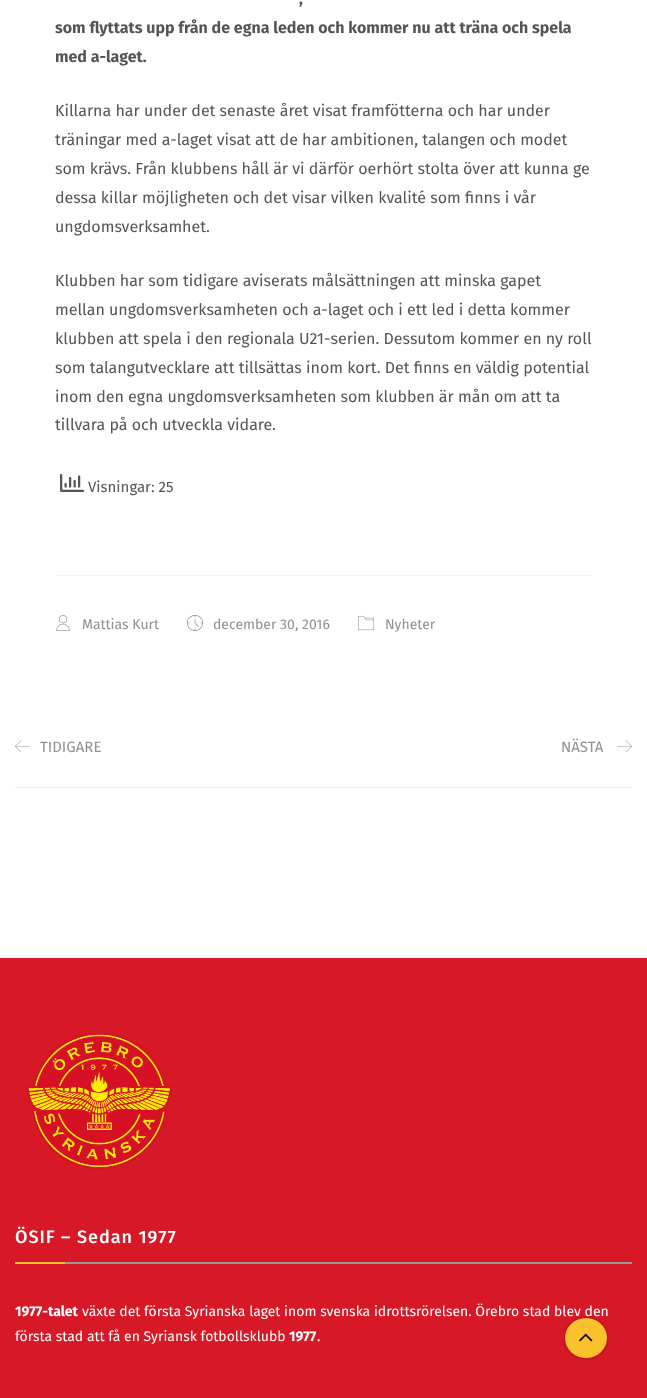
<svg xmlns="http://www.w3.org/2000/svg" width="647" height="1398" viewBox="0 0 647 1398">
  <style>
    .t1 { font: bold 16px Fira Sans; fill: #555; }
    .t2 { font: 16px Fira Sans; fill: #555; }
    .t3 { font: 15px Fira Sans; fill: #555; }
    .t4 { font: 14px Fira Sans; fill: #909090; }
    .t5 { font: 15px Fira Sans; fill: #909090; }
    .t6 { font: 500 18px Fira Sans; letter-spacing: 1px; fill: #fff; }
    .t7 { font: bold 14px Fira Sans; fill: #fff; }
    .t8 { font: 14px Fira Sans; fill: #fff; }
  </style>
  <rect width="100%" height="100%" fill="#fff"/>
  <text x="299" y="4" class="t1">,</text>
  <text x="55" y="33" class="t1">som flyttats upp från de egna leden och kommer nu att träna och spela</text>
  <text x="55" y="62" class="t1">med a-laget.</text>
  <text x="55" y="116" class="t2">Killarna har under det senaste året visat framfötterna och har under</text>
  <text x="55" y="145" class="t2">träningar med a-laget visat att de har ambitionen, talangen och modet</text>
  <text x="55" y="174" class="t2">som krävs. Från klubbens håll är vi därför oerhört stolta över att kunna ge</text>
  <text x="55" y="203" class="t2">dessa killar möjligheten och det visar vilken kvalité som finns i vår</text>
  <text x="55" y="232" class="t2">ungdomsverksamhet.</text>
  <text x="55" y="286" class="t2">Klubben har som tidigare aviserats målsättningen att minska gapet</text>
  <text x="55" y="315" class="t2">mellan ungdomsverksamheten och a-laget och i ett led i detta kommer</text>
  <text x="55" y="344" class="t2">klubben att spela i den regionala U21-serien. Dessutom kommer en ny roll</text>
  <text x="55" y="373" class="t2">som talangutvecklare att tillsättas inom kort. Det finns en väldig potential</text>
  <text x="55" y="402" class="t2">inom den egna ungdomsverksamheten som klubben är mån om att ta</text>
  <text x="55" y="430" class="t2">tillvara på och utveckla vidare.</text>
  <image x="60" y="474" width="24" height="18" href="images/1.png"/>
  <text x="88" y="492" class="t3">Visningar: 25</text>
  <rect x="55" y="575" width="537" height="1" fill="#f2f2f2"/>
  <image x="56" y="615" width="14" height="16" href="images/2.png"/>
  <text x="82" y="629" class="t4">Mattias Kurt</text>
  <image x="187" y="615" width="16" height="16" href="images/3.png"/>
  <text x="213" y="629" class="t4">december 30, 2016</text>
  <image x="358" y="615" width="16" height="16" href="images/4.png"/>
  <text x="385" y="629" class="t4">Nyheter</text>
  <rect x="15" y="787" width="617" height="1" fill="#eaeaea"/>
  <image x="15" y="740" width="15" height="13" href="images/5.png"/>
  <text x="40" y="752" class="t5">TIDIGARE</text>
  <text x="561" y="752" class="t5">NÄSTA</text>
  <image x="617" y="740" width="15" height="13" href="images/6.png"/>
  <rect x="0" y="958" width="647" height="440" fill="#d61827"/>
  <image x="26" y="1033" width="147" height="136" href="images/7.png"/>
  <rect x="65" y="1262" width="567" height="2" fill="#999"/>
  <text x="15" y="1243" class="t6">ÖSIF – Sedan 1977</text>
  <rect x="15" y="1262" width="50" height="2" fill="#fbc02d"/>
  <text x="15" y="1316" class="t7">1977-talet</text>
  <text x="82" y="1316" class="t8">växte det första Syrianska laget inom svenska idrottsrörelsen. Örebro stad blev den</text>
  <text x="15" y="1341" class="t8">första stad att få en Syriansk fotbollsklubb</text>
  <text x="289" y="1341" class="t7">1977</text>
  <text x="317" y="1341" class="t8">.</text>
  <rect x="565" y="1318" width="42" height="40" rx="20" fill="#00000066" filter="blur(1px)"/>
  <ellipse cx="586" cy="1338" rx="21" ry="20" fill="#fbc02d"/>
  <image x="579" y="1333" width="14" height="9" href="images/8.png"/>
</svg>
